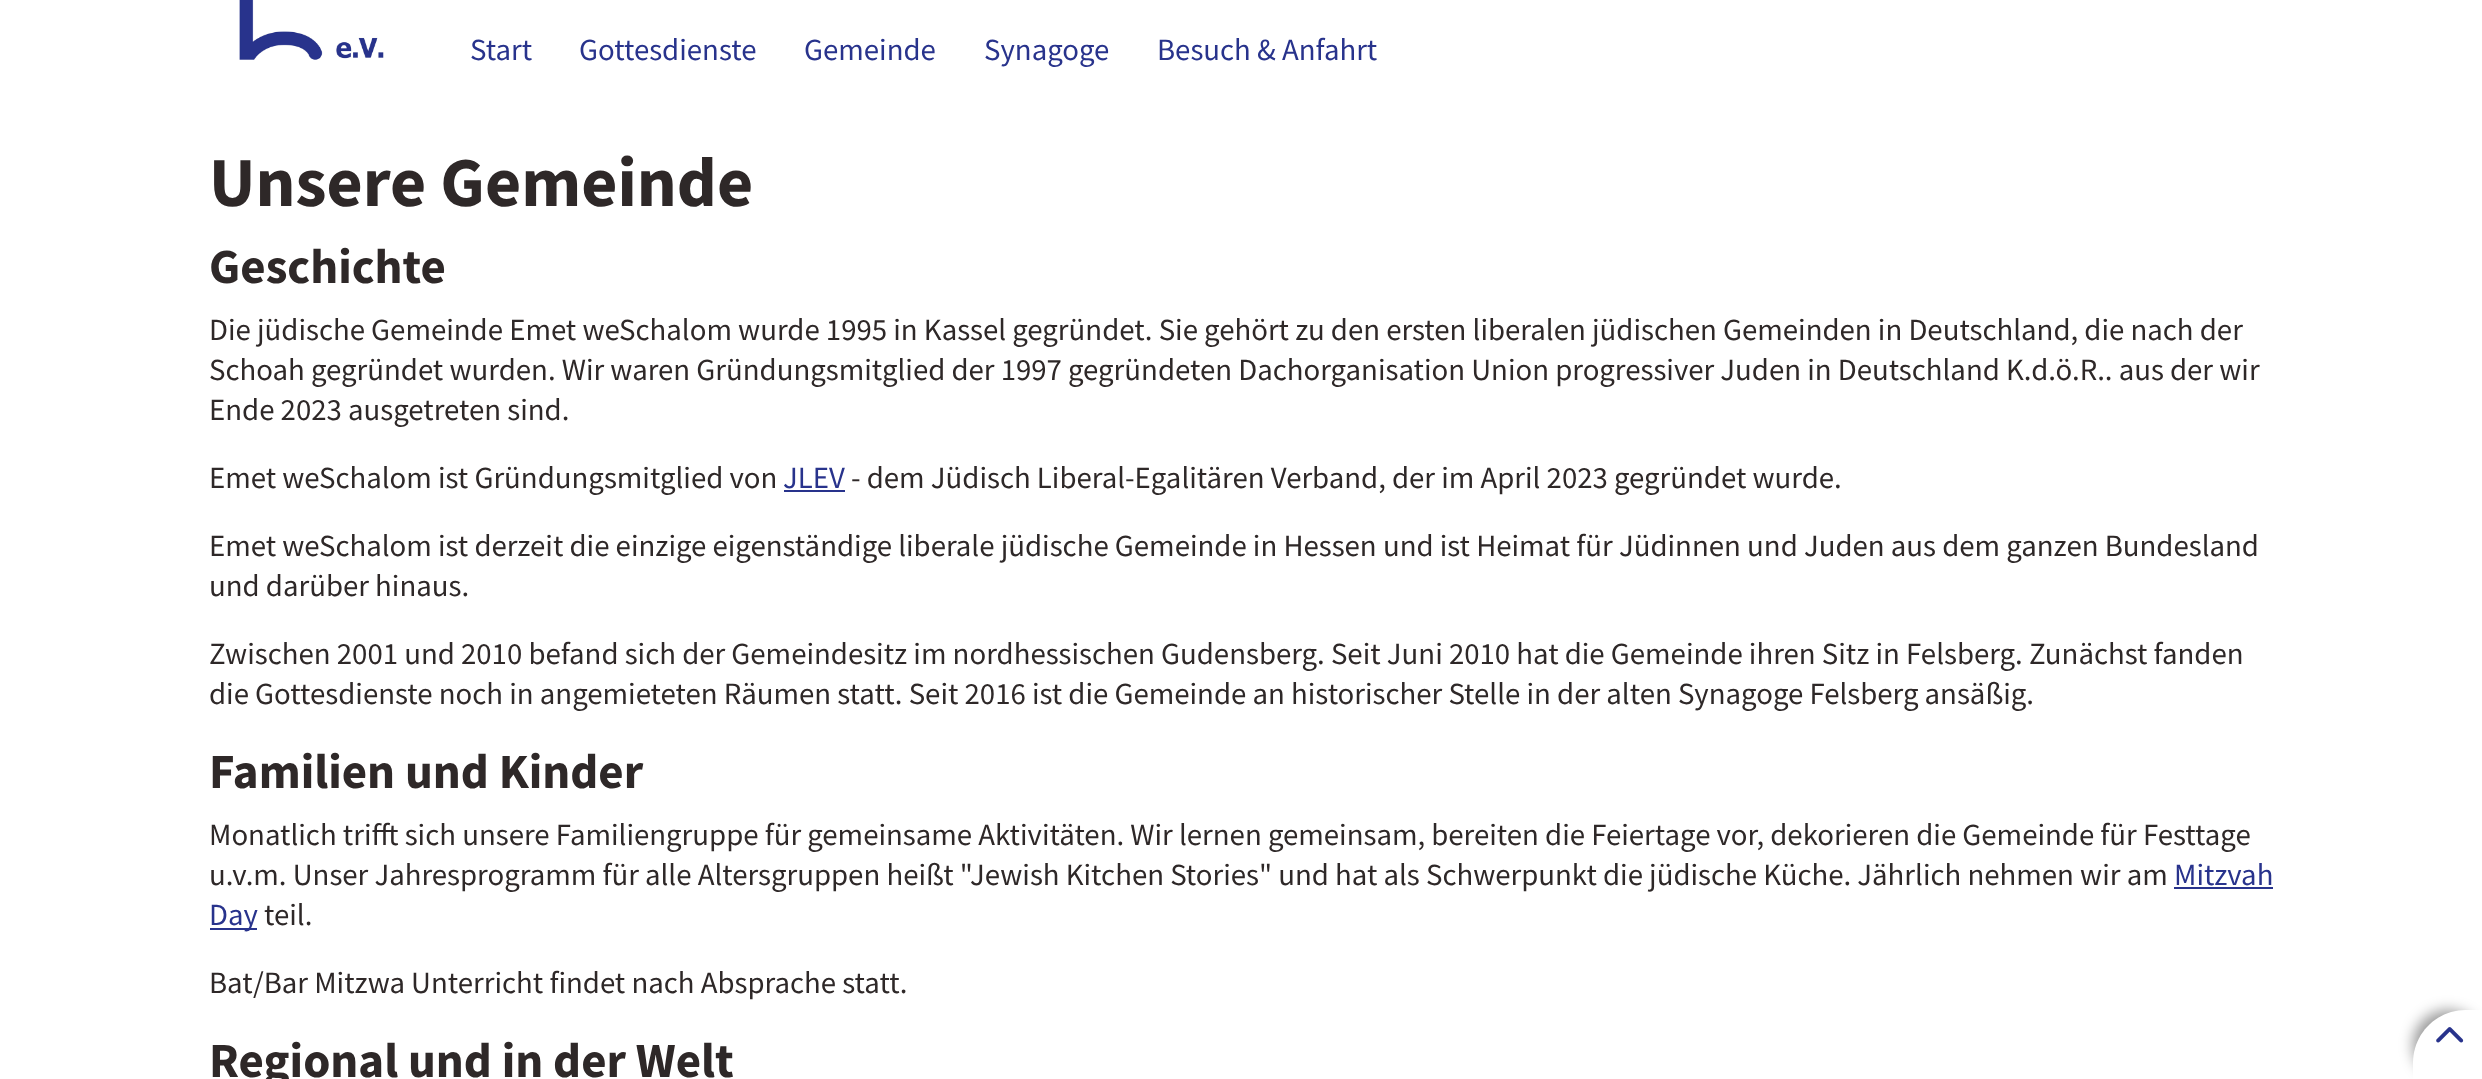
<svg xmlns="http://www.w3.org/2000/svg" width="2482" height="1079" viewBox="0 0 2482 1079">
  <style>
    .t1 { font: 30.8px Source Sans Pro; fill: #28338c; }
    .t2 { font: bold 70px Source Sans Pro; fill: #2e2828; }
    .t3 { font: bold 49px Source Sans Pro; fill: #2e2828; }
    .t4 { font: 30.8px Source Sans Pro; fill: #2e2828; }
  </style>
  <rect width="100%" height="100%" fill="#fff"/>
  <image x="239" y="0" width="145" height="60" href="images/1.png"/>
  <text x="470" y="60" class="t1">Start</text>
  <text x="579" y="60" class="t1">Gottesdienste</text>
  <text x="804" y="60" class="t1">Gemeinde</text>
  <text x="984" y="60" class="t1">Synagoge</text>
  <text x="1157" y="60" class="t1">Besuch &amp; Anfahrt</text>
  <text x="209" y="206" class="t2">Unsere Gemeinde</text>
  <text x="209" y="283" class="t3">Geschichte</text>
  <text x="209" y="340" class="t4">Die jüdische Gemeinde Emet weSchalom wurde 1995 in Kassel gegründet. Sie gehört zu den ersten liberalen jüdischen Gemeinden in Deutschland, die nach der</text>
  <text x="209" y="380" class="t4">Schoah gegründet wurden. Wir waren Gründungsmitglied der 1997 gegründeten Dachorganisation Union progressiver Juden in Deutschland K.d.ö.R.. aus der wir</text>
  <text x="209" y="420" class="t4">Ende 2023 ausgetreten sind.</text>
  <text x="209" y="488" class="t4">Emet weSchalom ist Gründungsmitglied von</text>
  <text x="783" y="488" class="t1">JLEV</text>
  <rect x="784" y="490" width="61" height="2" fill="#28338c"/>
  <text x="851" y="488" class="t4">- dem Jüdisch Liberal-Egalitären Verband, der im April 2023 gegründet wurde.</text>
  <text x="209" y="556" class="t4">Emet weSchalom ist derzeit die einzige eigenständige liberale jüdische Gemeinde in Hessen und ist Heimat für Jüdinnen und Juden aus dem ganzen Bundesland</text>
  <text x="209" y="596" class="t4">und darüber hinaus.</text>
  <text x="209" y="664" class="t4">Zwischen 2001 und 2010 befand sich der Gemeindesitz im nordhessischen Gudensberg. Seit Juni 2010 hat die Gemeinde ihren Sitz in Felsberg. Zunächst fanden</text>
  <text x="209" y="704" class="t4">die Gottesdienste noch in angemieteten Räumen statt. Seit 2016 ist die Gemeinde an historischer Stelle in der alten Synagoge Felsberg ansäßig.</text>
  <text x="209" y="788" class="t3">Familien und Kinder</text>
  <text x="209" y="845" class="t4">Monatlich trifft sich unsere Familiengruppe für gemeinsame Aktivitäten. Wir lernen gemeinsam, bereiten die Feiertage vor, dekorieren die Gemeinde für Festtage</text>
  <text x="209" y="885" class="t4">u.v.m. Unser Jahresprogramm für alle Altersgruppen heißt "Jewish Kitchen Stories" und hat als Schwerpunkt die jüdische Küche. Jährlich nehmen wir am</text>
  <text x="2174" y="885" class="t1">Mitzvah</text>
  <rect x="2174" y="887" width="99" height="2" fill="#28338c"/>
  <rect x="210" y="928" width="47" height="2" fill="#28338c"/>
  <text x="209" y="925" class="t1">Day</text>
  <text x="264" y="925" class="t4">teil.</text>
  <text x="209" y="993" class="t4">Bat/Bar Mitzwa Unterricht findet nach Absprache statt.</text>
  <text x="209" y="1077" class="t3">Regional und in der Welt</text>
  <rect x="2413" y="1010" width="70" height="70" rx="53" fill="#00000066" filter="blur(7px)"/>
  <path d="M2466 1010H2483V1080H2413V1063C2413 1033.5 2436.5 1010 2466 1010Z" fill="#fff"/>
  <image x="2436" y="1027" width="28" height="16" href="images/2.png"/>
</svg>
